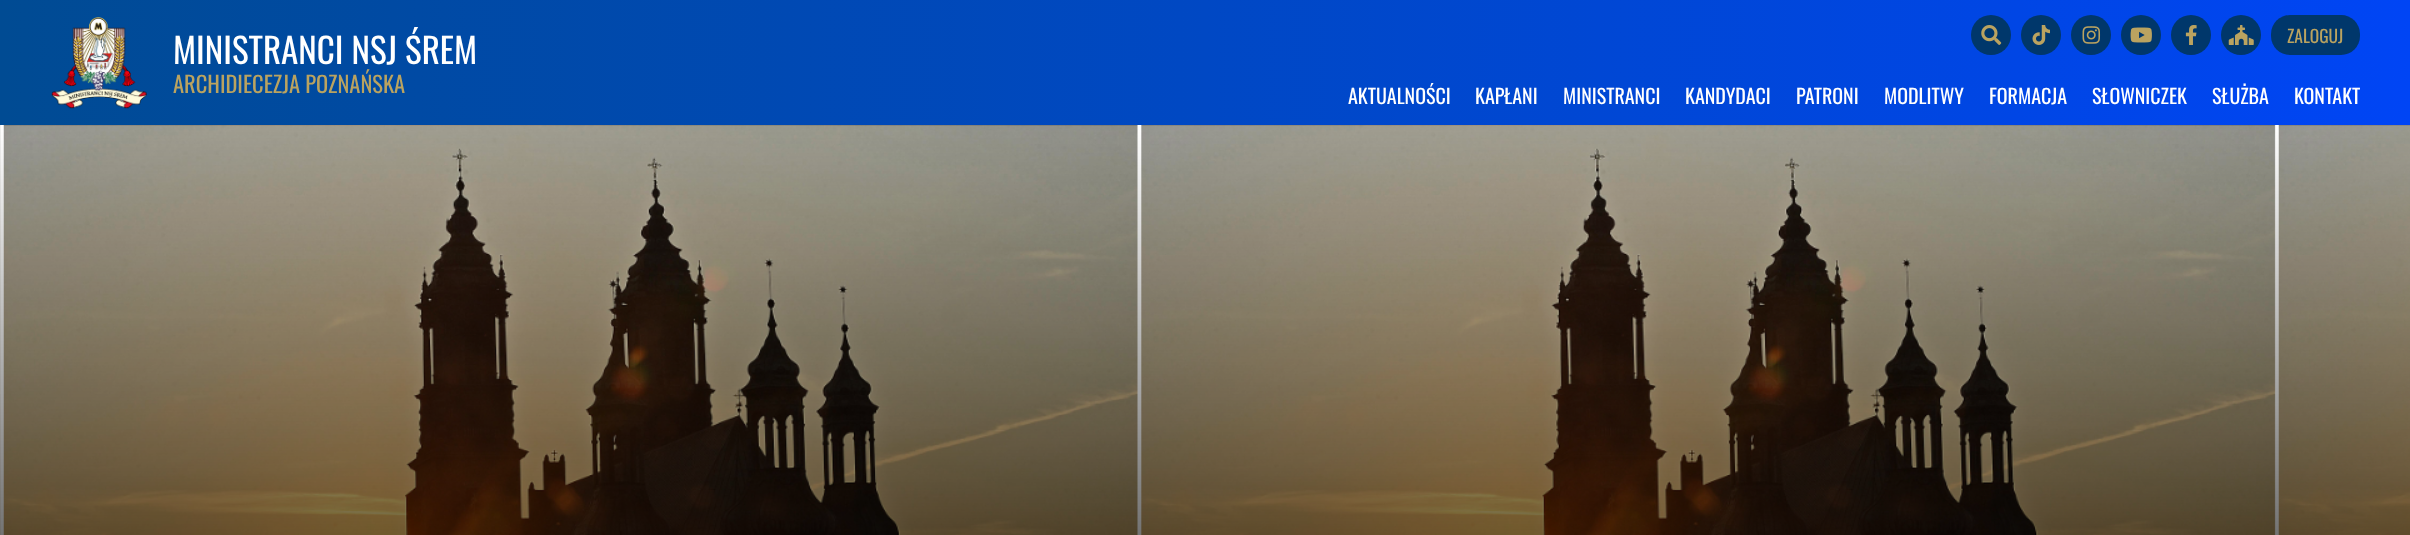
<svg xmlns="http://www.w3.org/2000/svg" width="2410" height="535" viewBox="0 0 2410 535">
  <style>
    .t1 { font: 35px Oswald; fill: #fff; }
    .t2 { font: 22.5px Oswald; fill: #baa360; }
    .t3 { font: 17.5px Oswald; fill: #baa360; }
    .t4 { font: 20px Oswald; fill: #fff; }
  </style>
  <defs>
    <linearGradient id="g1" gradientUnits="userSpaceOnUse" x1="0" y1="63" x2="2410" y2="62"><stop offset="0" stop-color="#004b93"/><stop offset="1" stop-color="#0045f5"/></linearGradient>
  </defs>
  <rect width="100%" height="100%" fill="#fff"/>
  <rect x="0" y="0" width="2410" height="125" fill="url(#g1)"/>
  <image x="51" y="17" width="96" height="92" href="images/1.png"/>
  <text x="173" y="64" class="t1">MINISTRANCI NSJ ŚREM</text>
  <text x="173" y="93" class="t2">ARCHIDIECEZJA POZNAŃSKA</text>
  <circle cx="1991" cy="35" r="20" fill="#00376b"/>
  <image x="1981" y="25" width="21" height="20" href="images/2.png"/>
  <circle cx="2041" cy="35" r="20" fill="#00376b"/>
  <image x="2032" y="25" width="18" height="20" href="images/3.png"/>
  <circle cx="2091" cy="35" r="20" fill="#00376b"/>
  <image x="2082" y="26" width="19" height="18" href="images/4.png"/>
  <circle cx="2141" cy="35" r="20" fill="#00376b"/>
  <image x="2130" y="27" width="22" height="16" href="images/5.png"/>
  <circle cx="2191" cy="35" r="20" fill="#00376b"/>
  <image x="2185" y="25" width="12" height="20" href="images/6.png"/>
  <circle cx="2241" cy="35" r="20" fill="#00376b"/>
  <image x="2228" y="25" width="26" height="20" href="images/7.png"/>
  <rect x="2271" y="15" width="89" height="40" rx="19" fill="#00376b"/>
  <text x="2287" y="43" class="t3">ZALOGUJ</text>
  <text x="1348" y="104" class="t4">AKTUALNOŚCI</text>
  <text x="1475" y="104" class="t4">KAPŁANI</text>
  <text x="1563" y="104" class="t4">MINISTRANCI</text>
  <text x="1685" y="104" class="t4">KANDYDACI</text>
  <text x="1796" y="104" class="t4">PATRONI</text>
  <text x="1884" y="104" class="t4">MODLITWY</text>
  <text x="1989" y="104" class="t4">FORMACJA</text>
  <text x="2092" y="104" class="t4">SŁOWNICZEK</text>
  <text x="2212" y="104" class="t4">SŁUŻBA</text>
  <text x="2294" y="104" class="t4">KONTAKT</text>
  <image x="0" y="125" width="2410" height="410" href="images/8.png"/>
</svg>
